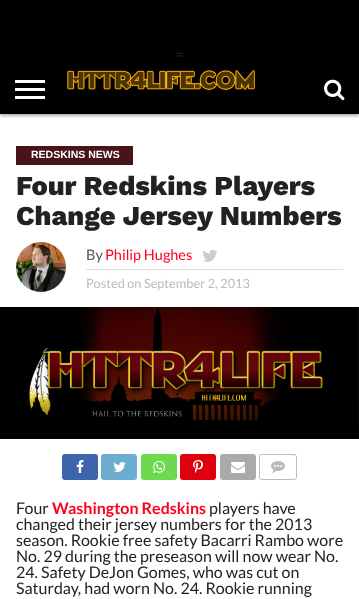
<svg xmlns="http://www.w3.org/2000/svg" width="359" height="599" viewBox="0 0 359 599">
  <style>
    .t1 { font: 16px Lato; fill: #222; }
    .t2 { font: bold 10.5px Liberation Sans; fill: #fff; }
    .t3 { font: 800 27.25px Work Sans; fill: #222; }
    .t4 { font: 14.5px Lato; fill: #555; }
    .t5 { font: 14.5px Lato; fill: #ff001e; }
    .t6 { font: 12.75px Lato; fill: #bbb; }
    .t7 { font: bold 16px Lato; fill: #ff001e; }
  </style>
  <defs>
    <linearGradient id="g1" gradientUnits="userSpaceOnUse" x1="180" y1="399" x2="180" y2="439"><stop offset="0" stop-color="#000" stop-opacity="0"/><stop offset="0.5" stop-color="#000" stop-opacity="0.4"/><stop offset="1" stop-color="#000" stop-opacity="0.6"/></linearGradient>
  </defs>
  <rect width="100%" height="100%" fill="#fff"/>
  <rect x="0" y="66" width="359" height="50" fill="#0000004d" filter="blur(1.5px)"/>
  <rect x="0" y="0" width="359" height="114" fill="#000"/>
  <rect x="15" y="80" width="30" height="3" fill="#fff"/>
  <rect x="15" y="88" width="30" height="3" fill="#fff"/>
  <rect x="15" y="96" width="30" height="3" fill="#fff"/>
  <image x="67" y="70" width="188" height="21" href="images/1.png"/>
  <image x="324" y="79" width="21" height="22" href="images/2.png"/>
  <text x="175" y="60" class="t1">=</text>
  <rect x="16" y="146" width="117" height="19" fill="#481319"/>
  <text x="31" y="158" class="t2">REDSKINS NEWS</text>
  <text x="16" y="195" class="t3">Four Redskins Players</text>
  <text x="16" y="225" class="t3">Change Jersey Numbers</text>
  <image x="16" y="242" width="50" height="50" href="images/3.png"/>
  <rect x="86" y="269" width="257" height="1" fill="#ddd"/>
  <text x="86" y="260" class="t4">By</text>
  <text x="105" y="260" class="t5">Philip Hughes</text>
  <image x="203" y="249" width="14" height="13" href="images/4.png"/>
  <text x="86" y="288" class="t6">Posted on September 2, 2013</text>
  <image x="0" y="307" width="359" height="132" href="images/5.png"/>
  <rect x="0" y="400" width="359" height="39" fill="url(#g1)"/>
  <rect x="62" y="454" width="36" height="26" rx="3" fill="#3e64ad"/>
  <image x="76" y="460" width="8" height="13" href="images/6.png"/>
  <rect x="101" y="454" width="36" height="26" rx="3" fill="#6aadd1"/>
  <image x="113" y="462" width="13" height="10" href="images/7.png"/>
  <rect x="141" y="454" width="36" height="26" rx="3" fill="#6cd94e"/>
  <image x="153" y="461" width="12" height="12" href="images/8.png"/>
  <rect x="180" y="454" width="36" height="26" rx="3" fill="#de010d"/>
  <image x="193" y="460" width="10" height="13" href="images/9.png"/>
  <rect x="220" y="454" width="36" height="26" rx="3" fill="#aaa"/>
  <image x="231" y="462" width="14" height="11" href="images/10.png"/>
  <rect x="259.5" y="454.5" width="37" height="25" rx="2.5" fill="none" stroke="#bbb"/>
  <image x="271" y="461" width="14" height="12" href="images/11.png"/>
  <text x="16" y="514" class="t1">Four</text>
  <text x="52" y="514" class="t7">Washington Redskins</text>
  <text x="209" y="514" class="t1">players have</text>
  <text x="16" y="530" class="t1">changed their jersey numbers for the 2013</text>
  <text x="16" y="546" class="t1">season. Rookie free safety Bacarri Rambo wore</text>
  <text x="16" y="562" class="t1">No. 29 during the preseason will now wear No.</text>
  <text x="16" y="578" class="t1">24. Safety DeJon Gomes, who was cut on</text>
  <text x="16" y="594" class="t1">Saturday, had worn No. 24. Rookie running</text>
</svg>
